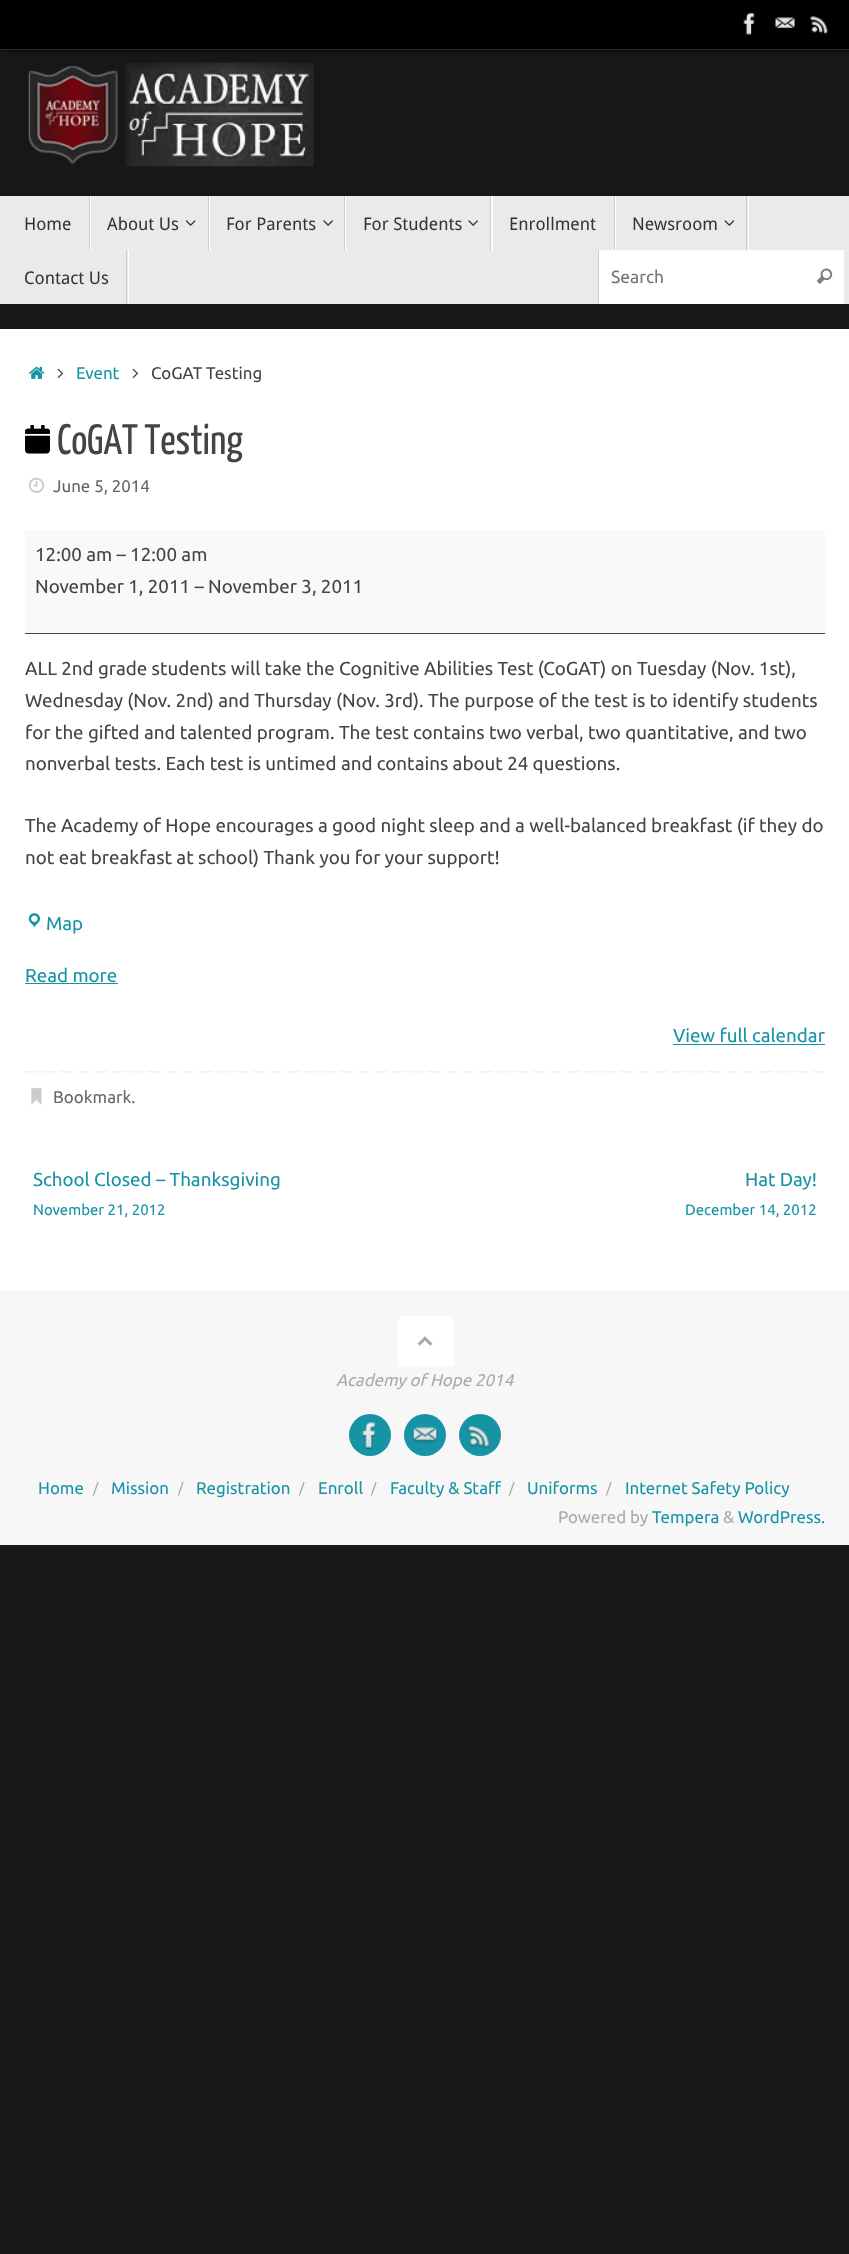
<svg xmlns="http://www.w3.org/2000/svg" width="849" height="2254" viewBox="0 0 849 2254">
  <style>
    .t1 { font: 17.5px Droid Sans; fill: #333; }
    .t2 { font: 17.5px Ubuntu; fill: #757575; }
    .t3 { font: 16.9px Ubuntu; fill: #1693a5; }
    .t4 { font: 16.9px Ubuntu; fill: #444; }
    .t5 { font: 42.5px Yanone Kaffeesatz; fill: #444; }
    .t6 { font: 16.9px Ubuntu; fill: #666; }
    .t7 { font: 18.75px Ubuntu; fill: #444; }
    .t8 { font: 18.75px Ubuntu; fill: #1693a5; }
    .t9 { font: 15px Ubuntu; fill: #1693a5; }
    .t10 { font: italic 16.9px Ubuntu; fill: #aaa; }
    .t11 { font: 14px Ubuntu; fill: #aaa; }
    .t12 { font: 16.9px Ubuntu; fill: #aaa; }
  </style>
  <rect width="100%" height="100%" fill="#171717"/>
  <rect x="4" y="0" width="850" height="50" fill="#000" filter="blur(2px)"/>
  <rect x="0" y="0" width="849" height="49" fill="#000"/>
  <rect x="0" y="49" width="849" height="1" fill="#282828"/>
  <image x="743" y="13" width="12" height="22" href="images/1.png"/>
  <image x="775" y="17" width="20" height="12" href="images/2.png"/>
  <image x="810" y="16" width="18" height="18" href="images/3.png"/>
  <image x="28" y="62" width="286" height="105" href="images/4.png"/>
  <rect x="0" y="196" width="849" height="108" fill="#eaeaea"/>
  <path d="M8 196H90V250H91V196Z" fill="#fff"/>
  <rect x="89" y="196" width="1" height="54" fill="#ccc"/>
  <text x="24" y="230" class="t1">Home</text>
  <path d="M91 196H209V250H210V196Z" fill="#fff"/>
  <rect x="208" y="196" width="1" height="54" fill="#ccc"/>
  <text x="107" y="230" class="t1">About Us</text>
  <image x="185" y="220" width="11" height="6" href="images/5.png"/>
  <path d="M210 196H345V250H346V196Z" fill="#fff"/>
  <rect x="344" y="196" width="1" height="54" fill="#ccc"/>
  <text x="226" y="230" class="t1">For Parents</text>
  <image x="323" y="220" width="10" height="6" href="images/6.png"/>
  <path d="M346 196H491V250H493V196Z" fill="#fff"/>
  <rect x="490" y="196" width="1" height="54" fill="#ccc"/>
  <text x="363" y="230" class="t1">For Students</text>
  <image x="468" y="220" width="10" height="6" href="images/6.png"/>
  <path d="M493 196H615V250H616V196Z" fill="#fff"/>
  <rect x="614" y="196" width="1" height="54" fill="#ccc"/>
  <text x="509" y="230" class="t1">Enrollment</text>
  <path d="M616 196H748V250H749V196Z" fill="#fff"/>
  <rect x="746" y="196" width="1" height="54" fill="#ccc"/>
  <text x="632" y="230" class="t1">Newsroom</text>
  <image x="724" y="220" width="11" height="6" href="images/7.png"/>
  <path d="M8 304H129V250H128V304Z" fill="#fff"/>
  <rect x="126" y="250" width="1" height="54" fill="#ccc"/>
  <text x="24" y="284" class="t1">Contact Us</text>
  <rect x="599" y="250" width="245" height="54" fill="#fff"/>
  <rect x="598" y="250" width="1" height="54" fill="#ccc"/>
  <text x="611" y="283" class="t2">Search</text>
  <image x="816" y="268" width="17" height="16" href="images/8.png"/>
  <rect x="0" y="329" width="849" height="962" fill="#fff"/>
  <image x="29" y="366" width="16" height="13" href="images/9.png"/>
  <image x="57" y="368" width="7" height="11" href="images/10.png"/>
  <text x="76" y="379" class="t3">Event</text>
  <image x="132" y="368" width="7" height="11" href="images/10.png"/>
  <text x="151" y="379" class="t4">CoGAT Testing</text>
  <image x="25" y="425" width="25" height="29" href="images/11.png"/>
  <text x="57" y="454" class="t5">CoGAT Testing</text>
  <image x="28" y="477" width="17" height="16" href="images/12.png"/>
  <text x="53" y="492" class="t6">June 5, 2014</text>
  <rect x="25" y="530" width="800" height="103" fill="#f9f9f9"/>
  <rect x="25" y="633" width="800" height="1" fill="#444"/>
  <text x="35" y="561" class="t7">12:00 am – 12:00 am</text>
  <text x="35" y="593" class="t7">November 1, 2011 – November 3, 2011</text>
  <text x="25" y="675" class="t7">ALL 2nd grade students will take the Cognitive Abilities Test (CoGAT) on Tuesday (Nov. 1st),</text>
  <text x="25" y="707" class="t7">Wednesday (Nov. 2nd) and Thursday (Nov. 3rd). The purpose of the test is to identify students</text>
  <text x="25" y="739" class="t7">for the gifted and talented program. The test contains two verbal, two quantitative, and two</text>
  <text x="25" y="770" class="t7">nonverbal tests. Each test is untimed and contains about 24 questions.</text>
  <text x="25" y="832" class="t7">The Academy of Hope encourages a good night sleep and a well-balanced breakfast (if they do</text>
  <text x="25" y="864" class="t7">not eat breakfast at school) Thank you for your support!</text>
  <image x="28" y="913" width="12" height="15" href="images/13.png"/>
  <text x="46" y="930" class="t8">Map</text>
  <text x="25" y="982" class="t8">Read more</text>
  <rect x="25" y="983" width="93" height="1" fill="#1693a5"/>
  <text x="673" y="1042" class="t8">View full calendar</text>
  <rect x="673" y="1044" width="152" height="1" fill="#1693a5"/>
  <image x="25" y="1071" width="800" height="2" href="images/14.png"/>
  <image x="31" y="1088" width="11" height="17" href="images/15.png"/>
  <text x="53" y="1103" class="t6">Bookmark.</text>
  <text x="33" y="1186" class="t8">School Closed – Thanksgiving</text>
  <text x="33" y="1215" class="t9">November 21, 2012</text>
  <text x="745" y="1186" class="t8">Hat Day!</text>
  <text x="685" y="1215" class="t9">December 14, 2012</text>
  <rect x="0" y="1291" width="849" height="254" fill="#f7f7f7"/>
  <path d="M403 1316H449C452 1316 454 1318 454 1321V1366H398V1321C398 1318 400 1316 403 1316Z" fill="#fff"/>
  <image x="417" y="1336" width="16" height="10" href="images/16.png"/>
  <text x="336" y="1386" class="t10">Academy of Hope 2014</text>
  <circle cx="370" cy="1435" r="21" fill="#1693a5"/>
  <image x="361" y="1422" width="15" height="28" href="images/17.png"/>
  <circle cx="425" cy="1435" r="21" fill="#1693a5"/>
  <image x="412" y="1427" width="26" height="16" href="images/18.png"/>
  <circle cx="480" cy="1435" r="21" fill="#1693a5"/>
  <image x="467" y="1426" width="23" height="23" href="images/19.png"/>
  <text x="38" y="1494" class="t3">Home</text>
  <text x="93" y="1493" class="t11">/</text>
  <text x="111" y="1494" class="t3">Mission</text>
  <text x="178" y="1493" class="t11">/</text>
  <text x="196" y="1494" class="t3">Registration</text>
  <text x="299" y="1493" class="t11">/</text>
  <text x="318" y="1494" class="t3">Enroll</text>
  <text x="371" y="1493" class="t11">/</text>
  <text x="390" y="1494" class="t3">Faculty &amp; Staff</text>
  <text x="509" y="1493" class="t11">/</text>
  <text x="527" y="1494" class="t3">Uniforms</text>
  <text x="606" y="1493" class="t11">/</text>
  <text x="625" y="1494" class="t3">Internet Safety Policy</text>
  <text x="558" y="1523" class="t12">Powered by</text>
  <text x="652" y="1523" class="t3">Tempera</text>
  <text x="723" y="1523" class="t12">&amp;</text>
  <text x="738" y="1523" class="t3">WordPress.</text>
</svg>
